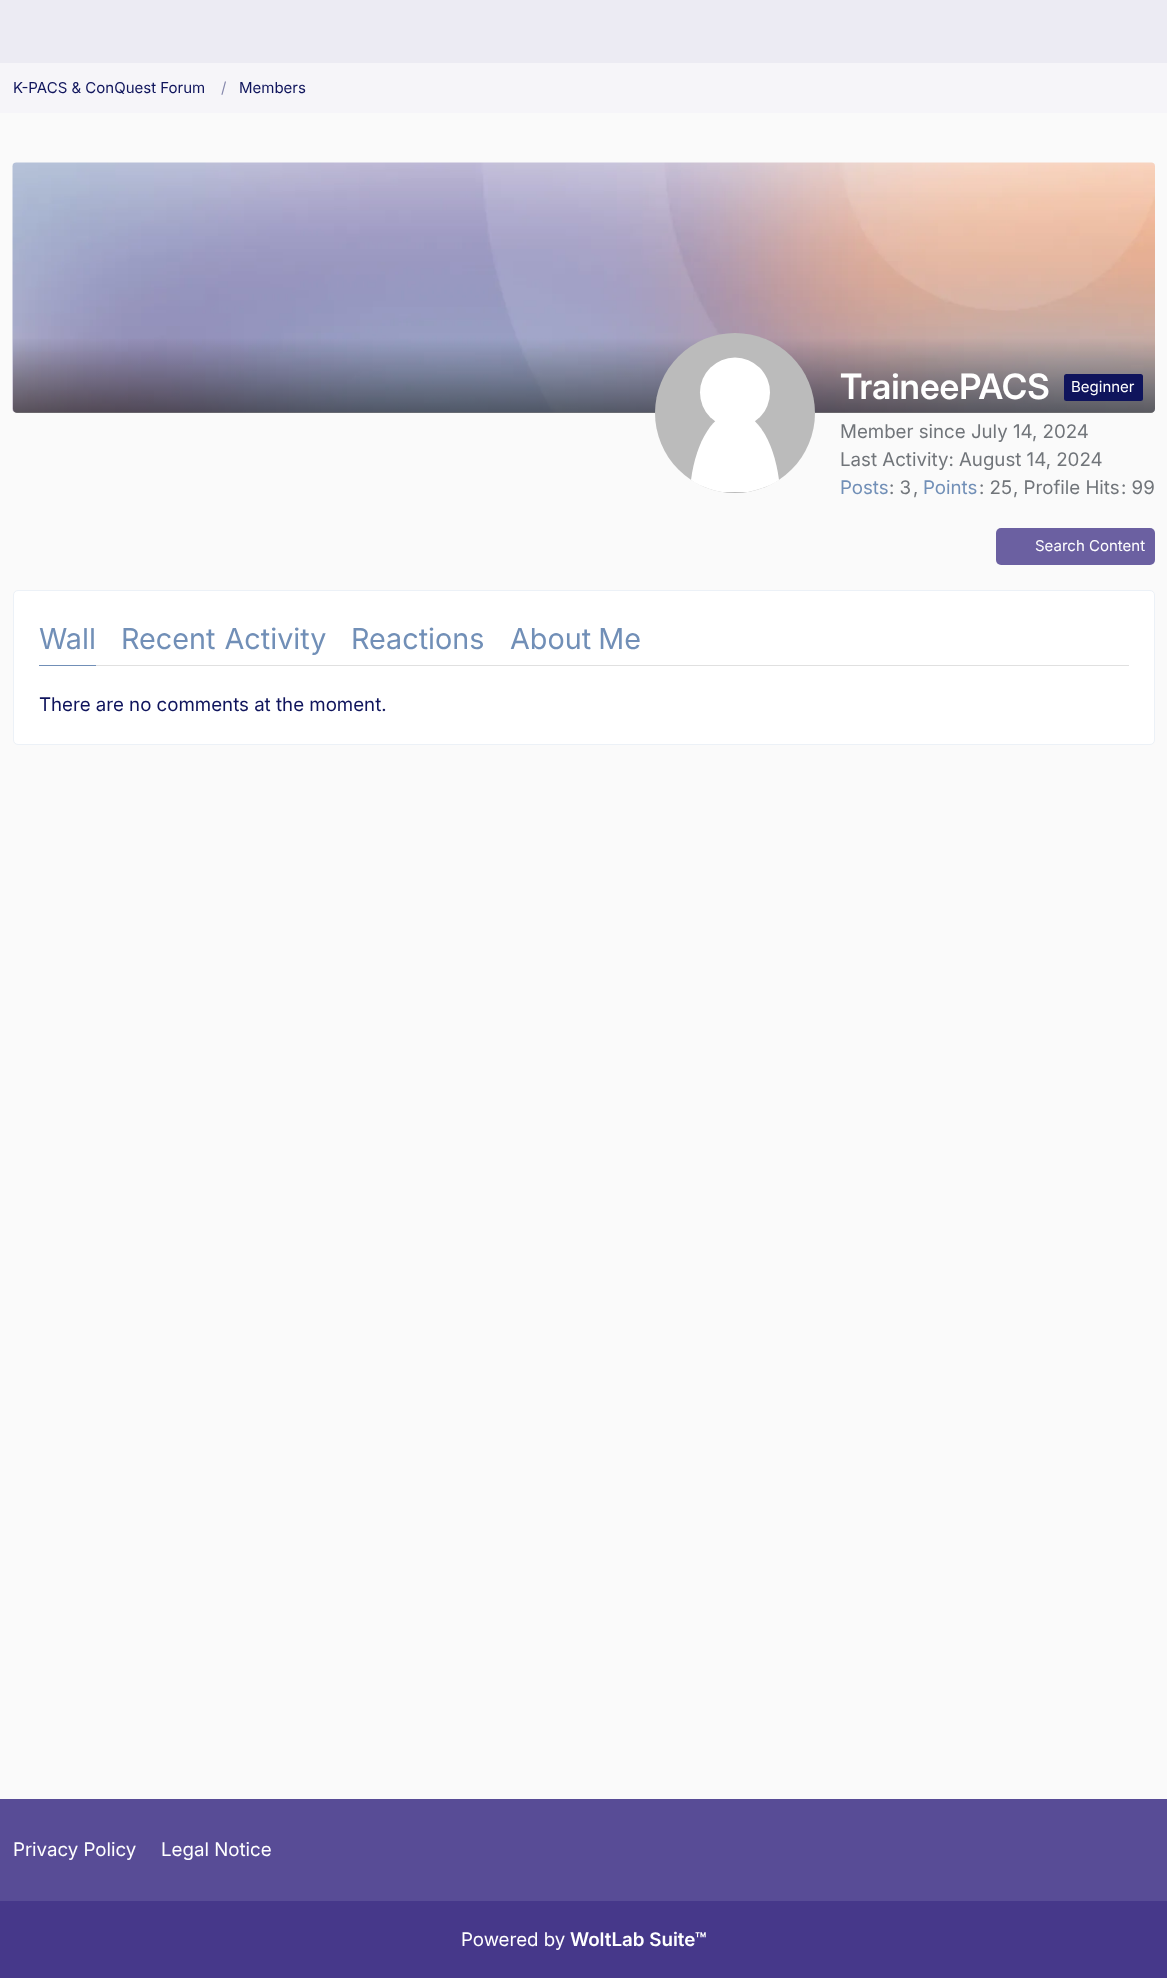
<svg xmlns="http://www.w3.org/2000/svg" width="1167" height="1978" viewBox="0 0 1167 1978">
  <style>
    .t1 { font: 15px Inter; fill: #0f145c; }
    .t2 { font: 15px Inter; fill: #8789ad; }
    .t3 { font: 600 35px 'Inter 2'; fill: #fff; }
    .t4 { font: 15px Inter; fill: #fff; }
    .t5 { font: 18.75px 'Inter 2'; fill: #71757a; }
    .t6 { font: 18.75px 'Inter 2'; fill: #718fb7; }
    .t7 { font: 28.75px Inter; fill: #718fb7; }
    .t8 { font: 18.75px 'Inter 2'; fill: #0f145c; }
    .t9 { font: 18.75px 'Inter 2'; fill: #fff; }
    .t10 { font: 600 18.75px Inter; fill: #fff; }
  </style>
  <defs>
    <linearGradient id="g1" gradientUnits="userSpaceOnUse" x1="584" y1="162" x2="584" y2="413"><stop offset="0.7" stop-color="#000" stop-opacity="0"/><stop offset="1" stop-color="#000" stop-opacity="0.5"/></linearGradient>
  </defs>
  <rect width="100%" height="100%" fill="#fafafa"/>
  <rect x="0" y="0" width="1167" height="63" fill="#ecebf3"/>
  <rect x="0" y="63" width="1167" height="50" fill="#f6f5f9"/>
  <text x="13" y="93" class="t1">K-PACS &amp; ConQuest Forum</text>
  <text x="221" y="93" class="t2">/</text>
  <text x="239" y="93" class="t1">Members</text>
  <image x="12" y="162" width="1143" height="251" href="images/1.png"/>
  <path d="M13 163H1155V409C1155 411 1153 413 1151 413H17C15 413 13 411 13 409Z" fill="url(#g1)"/>
  <circle cx="735" cy="413" r="80" fill="#bbb"/>
  <path d="M722 492C711 490 700 486 691 480C696 441 714 412 735 412C756 412 774 441 779 480C770 486 759 490 748 492Z" fill="#fff"/>
  <circle cx="735" cy="392.5" r="35" fill="#fff"/>
  <text x="840" y="399" class="t3">TraineePACS</text>
  <rect x="1064" y="374" width="79" height="27" rx="2.5" fill="#0f145c"/>
  <text x="1071" y="392" class="t4">Beginner</text>
  <text x="840" y="438" class="t5">Member since July 14, 2024</text>
  <text x="840" y="466" class="t5">Last Activity: August 14, 2024</text>
  <text x="840" y="494" class="t6">Posts</text>
  <text x="889" y="494" class="t5">: 3</text>
  <text x="913" y="494" class="t5">,</text>
  <text x="923" y="494" class="t6">Points</text>
  <text x="979" y="494" class="t5">: 25</text>
  <text x="1013" y="494" class="t5">, Profile Hits</text>
  <text x="1121" y="494" class="t5">: 99</text>
  <rect x="996" y="528" width="159" height="37" rx="5" fill="#6b60a1"/>
  <text x="1035" y="551" class="t4">Search Content</text>
  <rect x="13.5" y="590.5" width="1141" height="154" rx="4.5" fill="#fff" stroke="#ecf1f7"/>
  <rect x="96" y="665" width="1033" height="1" fill="#e0e0e0"/>
  <text x="39" y="649" class="t7">Wall</text>
  <rect x="39" y="665" width="57" height="1" fill="#718fb7"/>
  <text x="121" y="649" word-spacing="1" class="t7">Recent Activity</text>
  <text x="351" y="649" class="t7">Reactions</text>
  <text x="510" y="649" word-spacing="-1" class="t7">About Me</text>
  <text x="39" y="711" class="t8">There are no comments at the moment.</text>
  <rect x="0" y="1799" width="1167" height="102" fill="#584c96"/>
  <text x="13" y="1856" class="t9">Privacy Policy</text>
  <text x="161" y="1856" class="t9">Legal Notice</text>
  <rect x="0" y="1901" width="1167" height="77" fill="#46388a"/>
  <text x="461" y="1946" class="t9">Powered by</text>
  <text x="570" y="1946" class="t10">WoltLab Suite™</text>
</svg>
